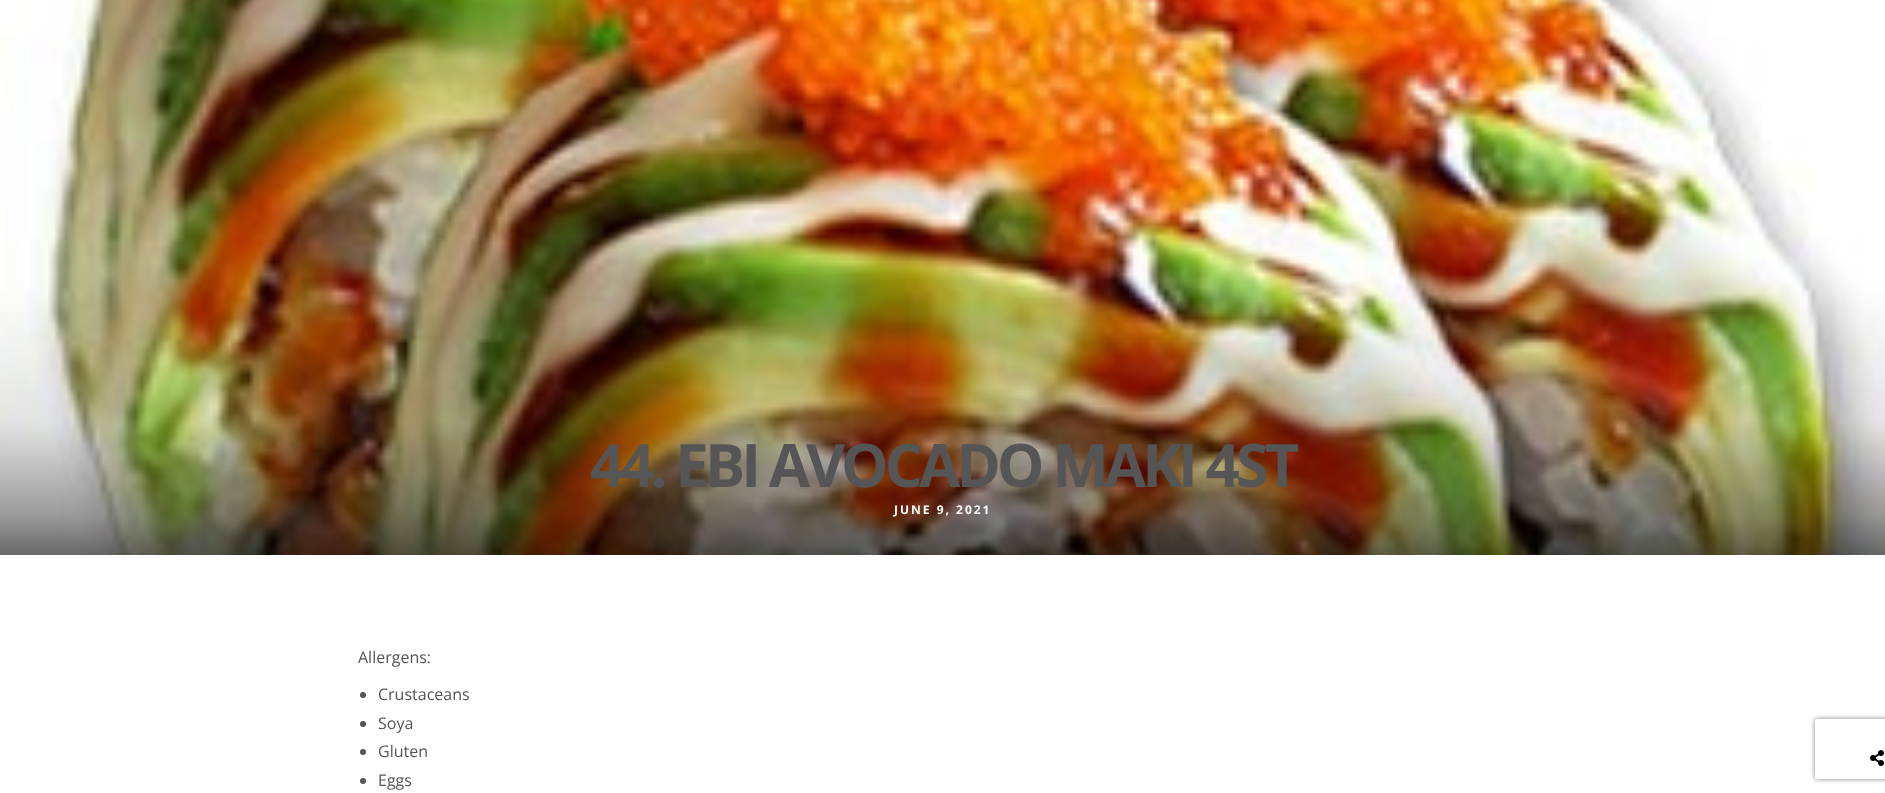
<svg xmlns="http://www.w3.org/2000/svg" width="1885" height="793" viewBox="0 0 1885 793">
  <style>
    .t1 { font: bold 60px Open Sans; letter-spacing: -4px; fill: #555; }
    .t2 { font: bold 12px Open Sans; letter-spacing: 2px; fill: #fff; }
    .t3 { font: 16px Open Sans; fill: #555; }
  </style>
  <defs>
    <clipPath id="clip1"><path d="M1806 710H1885V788H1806ZM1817 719H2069C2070 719 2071 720 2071 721V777C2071 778 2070 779 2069 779H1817C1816 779 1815 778 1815 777V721C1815 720 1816 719 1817 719Z" clip-rule="evenodd"/></clipPath>
  </defs>
  <rect width="100%" height="100%" fill="#fff"/>
  <image x="0" y="0" width="1885" height="555" href="images/1.png"/>
  <text x="590" y="487" class="t1">44. EBI AVOCADO MAKI 4ST</text>
  <text x="894" y="514" class="t2">JUNE 9, 2021</text>
  <text x="358" y="663" class="t3">Allergens:</text>
  <circle cx="363" cy="695" r="3" fill="#555"/>
  <text x="378" y="700" class="t3">Crustaceans</text>
  <circle cx="363" cy="724" r="3" fill="#555"/>
  <text x="378" y="729" class="t3">Soya</text>
  <circle cx="363" cy="752" r="3" fill="#555"/>
  <text x="378" y="757" class="t3">Gluten</text>
  <circle cx="363" cy="781" r="3" fill="#555"/>
  <text x="378" y="786" class="t3">Eggs</text>
  <g clip-path="url(#clip1)">
    <rect x="1815" y="719" width="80" height="60" rx="2" fill="#808080" filter="blur(2.5px)"/>
  </g>
  <image x="1870" y="750" width="14" height="16" href="images/2.png"/>
</svg>
